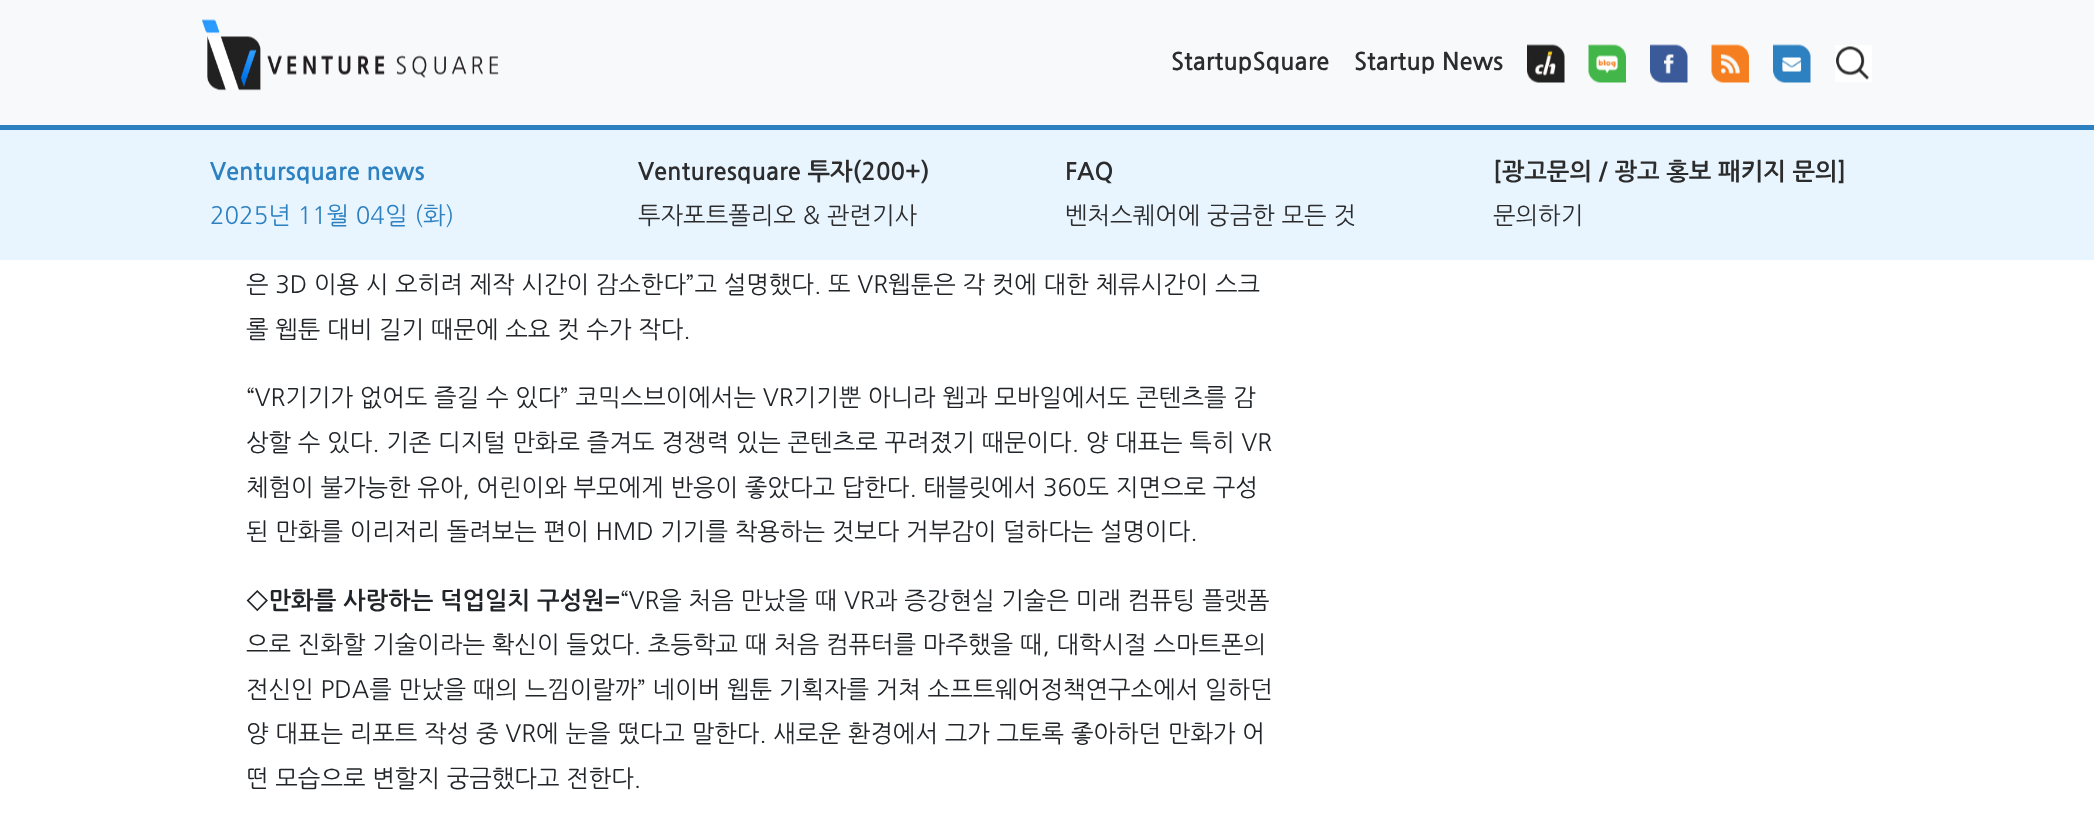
<svg xmlns="http://www.w3.org/2000/svg" width="2094" height="839" viewBox="0 0 2094 839">
  <style>
    .t1 { font: bold 24px NanumGothic; fill: #2c2c2c; }
    .t2 { font: bold 24px NanumGothic; fill: #2d81c0; }
    .t3 { font: 24px NanumGothic; fill: #2d81c0; }
    .t4 { font: 24px NanumGothic; fill: #2c2c2c; }
    .t5 { font: 24px NanumGothic; fill: #212529; }
    .t6 { font: bold 24px NanumGothic; fill: #212529; }
  </style>
  <rect width="100%" height="100%" fill="#fff"/>
  <rect x="0" y="0" width="2094" height="125" fill="#f8f9fa"/>
  <image x="202" y="19" width="297" height="72" href="images/1.png"/>
  <text x="1171" y="70" class="t1">StartupSquare</text>
  <text x="1354" y="70" class="t1">Startup News</text>
  <image x="1527" y="44" width="38" height="39" href="images/2.png"/>
  <image x="1588" y="44" width="38" height="39" href="images/3.png"/>
  <image x="1650" y="44" width="38" height="39" href="images/4.png"/>
  <image x="1711" y="44" width="38" height="39" href="images/5.png"/>
  <image x="1773" y="44" width="38" height="39" href="images/6.png"/>
  <image x="1835" y="45" width="37" height="37" href="images/7.png"/>
  <rect x="0" y="130" width="2094" height="130" fill="#e8f5ff"/>
  <rect x="0" y="125" width="2094" height="5" fill="#2d81c0"/>
  <text x="210" y="180" class="t2">Ventursquare news</text>
  <text x="210" y="224" class="t3">2025년 11월 04일 (화)</text>
  <text x="638" y="180" class="t1">Venturesquare 투자(200+)</text>
  <text x="638" y="224" class="t4">투자포트폴리오 &amp; 관련기사</text>
  <text x="1065" y="180" class="t1">FAQ</text>
  <text x="1065" y="224" class="t4">벤처스퀘어에 궁금한 모든 것</text>
  <text x="1493" y="180" class="t1">[광고문의 / 광고 홍보 패키지 문의]</text>
  <text x="1493" y="224" class="t4">문의하기</text>
  <text x="246" y="293" class="t5">은 3D 이용 시 오히려 제작 시간이 감소한다”고 설명했다. 또 VR웹툰은 각 컷에 대한 체류시간이 스크</text>
  <text x="246" y="338" class="t5">롤 웹툰 대비 길기 때문에 소요 컷 수가 작다.</text>
  <text x="246" y="406" class="t5">“VR기기가 없어도 즐길 수 있다” 코믹스브이에서는 VR기기뿐 아니라 웹과 모바일에서도 콘텐츠를 감</text>
  <text x="246" y="451" class="t5">상할 수 있다. 기존 디지털 만화로 즐겨도 경쟁력 있는 콘텐츠로 꾸려졌기 때문이다. 양 대표는 특히 VR</text>
  <text x="246" y="496" class="t5">체험이 불가능한 유아, 어린이와 부모에게 반응이 좋았다고 답한다. 태블릿에서 360도 지면으로 구성</text>
  <text x="246" y="540" class="t5">된 만화를 이리저리 돌려보는 편이 HMD 기기를 착용하는 것보다 거부감이 덜하다는 설명이다.</text>
  <text x="246" y="609" class="t6">◇만화를 사랑하는 덕업일치 구성원=</text>
  <text x="620" y="609" class="t5">“VR을 처음 만났을 때 VR과 증강현실 기술은 미래 컴퓨팅 플랫폼</text>
  <text x="246" y="653" class="t5">으로 진화할 기술이라는 확신이 들었다. 초등학교 때 처음 컴퓨터를 마주했을 때, 대학시절 스마트폰의</text>
  <text x="246" y="698" class="t5">전신인 PDA를 만났을 때의 느낌이랄까” 네이버 웹툰 기획자를 거쳐 소프트웨어정책연구소에서 일하던</text>
  <text x="246" y="742" class="t5">양 대표는 리포트 작성 중 VR에 눈을 떴다고 말한다. 새로운 환경에서 그가 그토록 좋아하던 만화가 어</text>
  <text x="246" y="787" class="t5">떤 모습으로 변할지 궁금했다고 전한다.</text>
</svg>
